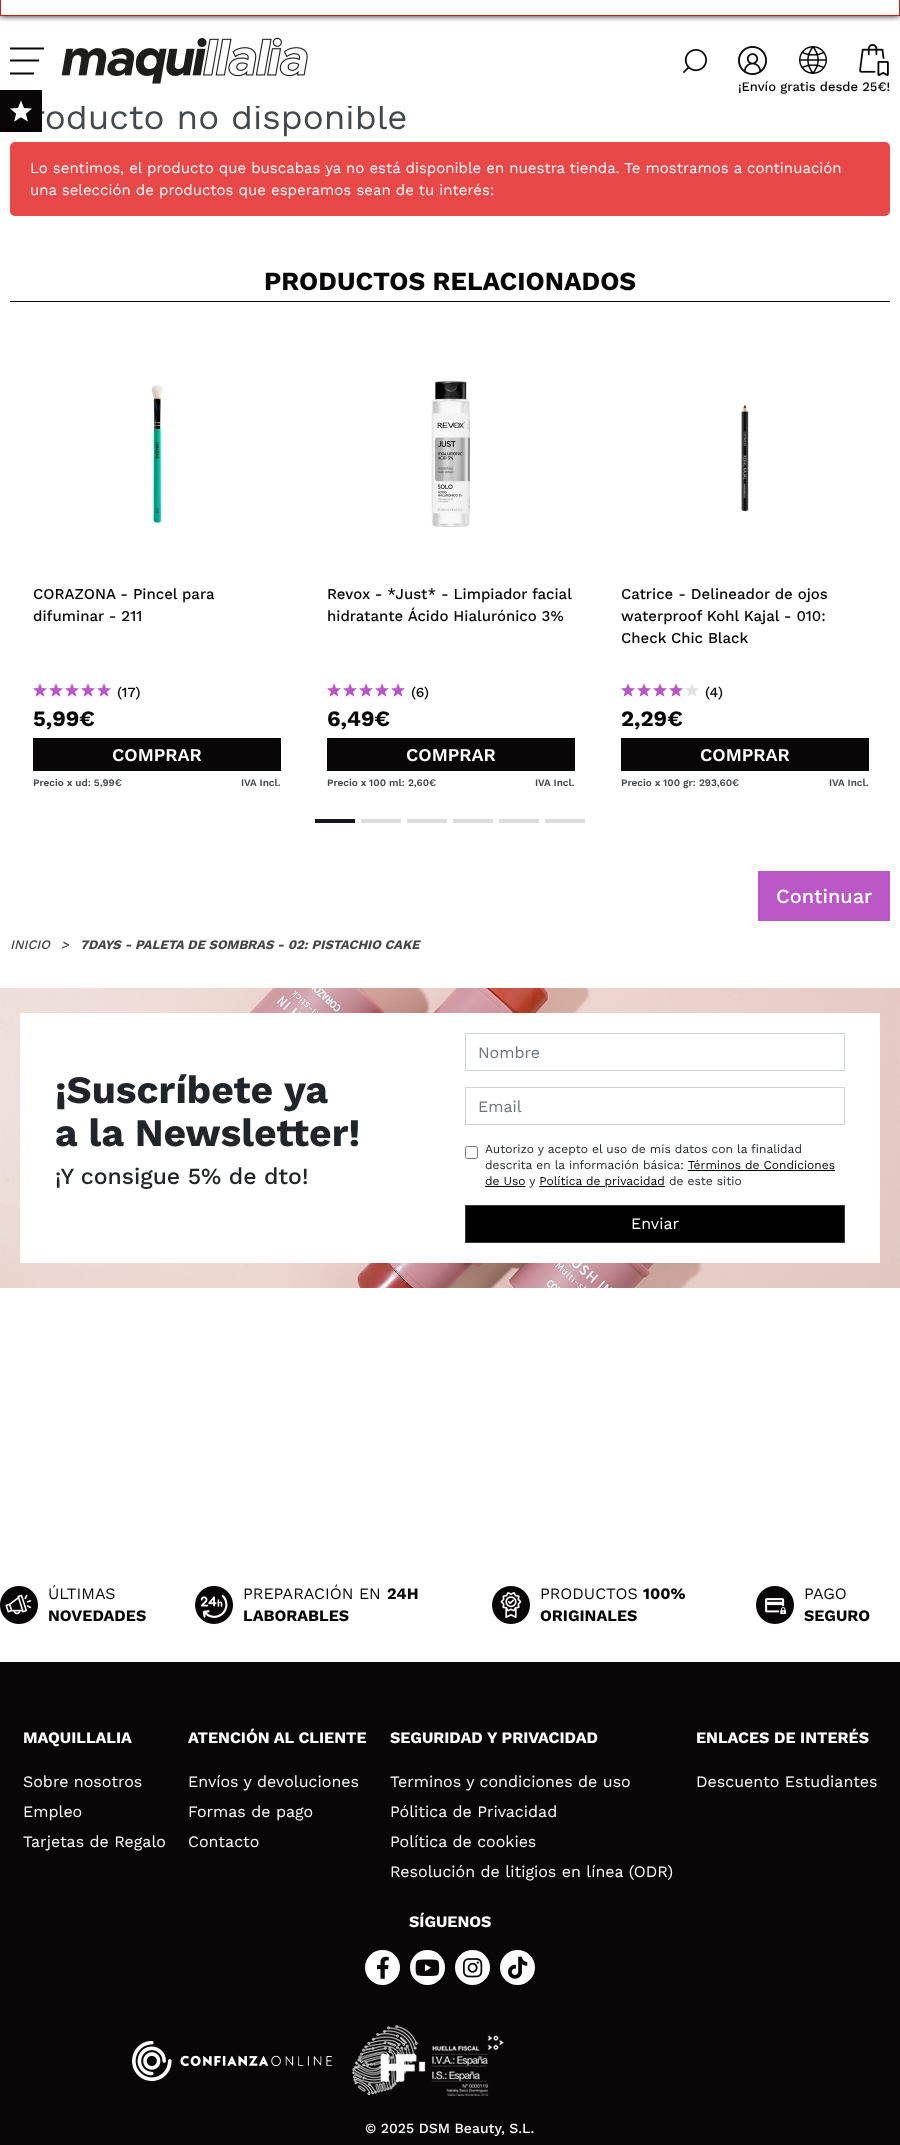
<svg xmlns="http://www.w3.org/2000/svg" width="900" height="2145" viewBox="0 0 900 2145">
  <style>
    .t1 { font: 35px Work Sans; fill: #42484e; }
    .t2 { font: 500 13px Work Sans; fill: #080607; }
    .t3 { font: 15px Work Sans; fill: #fff; }
    .t4 { font: bold 26px Work Sans; fill: #080607; }
    .t5 { font: 500 15px Work Sans; fill: #080607; }
    .t6 { font: 500 14px Work Sans; fill: #000; }
    .t7 { font: bold 22px Work Sans; fill: #080607; }
    .t8 { font: 600 18px Work Sans; fill: #fff; }
    .t9 { font: 600 10px Work Sans; fill: #42484e; }
    .t10 { font: 500 20px Work Sans; fill: #fff; }
    .t11 { font: italic 500 13px Work Sans; fill: #464445; }
    .t12 { font: italic bold 13px Work Sans; fill: #464445; }
    .t13 { font: 16px Work Sans; fill: #080607; }
    .t14 { font: bold 16px Work Sans; fill: #080607; }
    .t15 { font: bold 16px Work Sans; fill: #fff; }
    .t16 { font: 16px Work Sans; fill: #fff; }
    .t17 { font: 500 14px Work Sans; fill: #fff; }
  </style>
  <defs>
    <clipPath id="clip1"><rect x="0" y="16" width="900" height="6"/></clipPath>
  </defs>
  <rect width="100%" height="100%" fill="#fff"/>
  <g clip-path="url(#clip1)">
    <rect x="0" y="-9" width="900" height="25" fill="#111" filter="blur(3px)"/>
  </g>
  <rect x="0.5" y="-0.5" width="899" height="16" fill="none" stroke="#d21616"/>
  <text x="31" y="129" class="t1">roducto no disponible</text>
  <rect x="81" y="103" width="302" height="3" fill="#fff"/>
  <path d="M10 47.5V49.5H44V47.5ZM10 59.5V61.5H39V59.5ZM10 72.5V74.5H34V72.5Z" fill="#080607"/>
  <image x="61" y="37" width="247" height="47" href="images/1.png"/>
  <image x="683" y="49" width="24" height="24" href="images/2.png"/>
  <image x="738" y="46" width="29" height="29" href="images/3.png"/>
  <image x="799" y="46" width="28" height="28" href="images/4.png"/>
  <image x="859" y="44" width="30" height="32" href="images/5.png"/>
  <text x="738" y="91" class="t2">¡Envío gratis desde 25€!</text>
  <rect x="0" y="90" width="42" height="42" fill="#080607"/>
  <image x="10" y="100" width="22" height="22" href="images/6.png"/>
  <rect x="10" y="142" width="880" height="74" rx="5" fill="#e84848"/>
  <text x="30" y="173" class="t3">Lo sentimos, el producto que buscabas ya no está disponible en nuestra tienda. Te mostramos a continuación</text>
  <text x="30" y="195" class="t3">una selección de productos que esperamos sean de tu interés:</text>
  <rect x="10" y="301" width="880" height="1" fill="#080607"/>
  <text x="264" y="290" class="t4">PRODUCTOS RELACIONADOS</text>
  <image x="151" y="385" width="12" height="140" href="images/7.png"/>
  <text x="33" y="599" class="t5">CORAZONA - Pincel para</text>
  <text x="33" y="621" class="t5">difuminar - 211</text>
  <image x="33" y="683" width="14" height="14" href="images/8.png"/>
  <image x="49" y="683" width="14" height="14" href="images/8.png"/>
  <image x="65" y="683" width="14" height="14" href="images/8.png"/>
  <image x="81" y="683" width="14" height="14" href="images/8.png"/>
  <image x="97" y="683" width="14" height="14" href="images/8.png"/>
  <text x="117" y="697" class="t6">(17)</text>
  <text x="33" y="726" class="t7">5,99€</text>
  <rect x="33" y="738" width="248" height="33" fill="#080607"/>
  <text x="112" y="761" class="t8">COMPRAR</text>
  <text x="33" y="786" class="t9">Precio x ud: 5,99€</text>
  <text x="241" y="786" class="t9">IVA Incl.</text>
  <image x="431" y="381" width="39" height="147" href="images/9.png"/>
  <text x="327" y="599" class="t5">Revox - *Just* - Limpiador facial</text>
  <text x="327" y="621" class="t5">hidratante Ácido Hialurónico 3%</text>
  <image x="327" y="683" width="14" height="14" href="images/8.png"/>
  <image x="343" y="683" width="14" height="14" href="images/8.png"/>
  <image x="359" y="683" width="14" height="14" href="images/8.png"/>
  <image x="375" y="683" width="14" height="14" href="images/8.png"/>
  <image x="391" y="683" width="14" height="14" href="images/8.png"/>
  <text x="411" y="697" class="t6">(6)</text>
  <text x="327" y="726" class="t7">6,49€</text>
  <rect x="327" y="738" width="248" height="33" fill="#080607"/>
  <text x="406" y="761" class="t8">COMPRAR</text>
  <text x="327" y="786" class="t9">Precio x 100 ml: 2,60€</text>
  <text x="535" y="786" class="t9">IVA Incl.</text>
  <image x="741" y="405" width="8" height="107" href="images/10.png"/>
  <text x="621" y="599" class="t5">Catrice - Delineador de ojos</text>
  <text x="621" y="621" class="t5">waterproof Kohl Kajal - 010:</text>
  <text x="621" y="643" class="t5">Check Chic Black</text>
  <image x="621" y="683" width="14" height="14" href="images/8.png"/>
  <image x="637" y="683" width="14" height="14" href="images/8.png"/>
  <image x="653" y="683" width="14" height="14" href="images/8.png"/>
  <image x="669" y="683" width="14" height="14" href="images/8.png"/>
  <image x="685" y="684" width="14" height="13" href="images/11.png"/>
  <text x="705" y="697" class="t6">(4)</text>
  <text x="621" y="726" class="t7">2,29€</text>
  <rect x="621" y="738" width="248" height="33" fill="#080607"/>
  <text x="700" y="761" class="t8">COMPRAR</text>
  <text x="621" y="786" class="t9">Precio x 100 gr: 293,60€</text>
  <text x="829" y="786" class="t9">IVA Incl.</text>
  <rect x="315" y="819" width="40" height="4" fill="#17141d"/>
  <rect x="361" y="819" width="40" height="4" fill="#ddd"/>
  <rect x="407" y="819" width="40" height="4" fill="#ddd"/>
  <rect x="453" y="819" width="40" height="4" fill="#ddd"/>
  <rect x="499" y="819" width="40" height="4" fill="#ddd"/>
  <rect x="545" y="819" width="40" height="4" fill="#ddd"/>
  <rect x="758" y="871" width="132" height="50" fill="#b957c5"/>
  <text x="776" y="903" class="t10">Continuar</text>
  <text x="10" y="949" class="t11">INICIO</text>
  <text x="61" y="949" class="t11">&gt;</text>
  <text x="80" y="949" class="t12">7DAYS - PALETA DE SOMBRAS - 02: PISTACHIO CAKE</text>
  <image x="0" y="988" width="900" height="300" href="images/12.png"/>
  <image x="0" y="1586" width="38" height="38" href="images/13.png"/>
  <text x="48" y="1599" class="t13">ÚLTIMAS</text>
  <text x="48" y="1621" class="t14">NOVEDADES</text>
  <image x="195" y="1586" width="38" height="38" href="images/14.png"/>
  <text x="243" y="1599" class="t13">PREPARACIÓN EN</text>
  <text x="387" y="1599" class="t14">24H</text>
  <text x="243" y="1621" class="t14">LABORABLES</text>
  <image x="492" y="1586" width="38" height="38" href="images/15.png"/>
  <text x="540" y="1599" class="t13">PRODUCTOS</text>
  <text x="643" y="1599" class="t14">100%</text>
  <text x="540" y="1621" class="t14">ORIGINALES</text>
  <image x="756" y="1586" width="38" height="38" href="images/16.png"/>
  <text x="804" y="1599" class="t13">PAGO</text>
  <text x="804" y="1621" class="t14">SEGURO</text>
  <rect x="0" y="1662" width="900" height="483" fill="#080607"/>
  <text x="23" y="1743" class="t15">MAQUILLALIA</text>
  <text x="23" y="1787" class="t16">Sobre nosotros</text>
  <text x="23" y="1817" class="t16">Empleo</text>
  <text x="23" y="1847" class="t16">Tarjetas de Regalo</text>
  <text x="188" y="1743" class="t15">ATENCIÓN AL CLIENTE</text>
  <text x="188" y="1787" class="t16">Envíos y devoluciones</text>
  <text x="188" y="1817" class="t16">Formas de pago</text>
  <text x="188" y="1847" class="t16">Contacto</text>
  <text x="390" y="1743" class="t15">SEGURIDAD Y PRIVACIDAD</text>
  <text x="390" y="1787" class="t16">Terminos y condiciones de uso</text>
  <text x="390" y="1817" class="t16">Pólitica de Privacidad</text>
  <text x="390" y="1847" class="t16">Política de cookies</text>
  <text x="390" y="1877" class="t16">Resolución de litigios en línea (ODR)</text>
  <text x="696" y="1743" class="t15">ENLACES DE INTERÉS</text>
  <text x="696" y="1787" class="t16">Descuento Estudiantes</text>
  <text x="409" y="1927" class="t15">SÍGUENOS</text>
  <circle cx="382.5" cy="1967.5" r="17.5" fill="#fff"/>
  <image x="377" y="1956" width="12" height="23" href="images/17.png"/>
  <circle cx="427.5" cy="1967.5" r="17.5" fill="#fff"/>
  <image x="415" y="1959" width="25" height="17" href="images/18.png"/>
  <circle cx="472.5" cy="1967.5" r="17.5" fill="#fff"/>
  <image x="463" y="1958" width="20" height="20" href="images/19.png"/>
  <circle cx="517.5" cy="1967.5" r="17.5" fill="#fff"/>
  <image x="508" y="1956" width="20" height="23" href="images/20.png"/>
  <image x="132" y="2041" width="200" height="40" href="images/21.png"/>
  <image x="352" y="2025" width="152" height="71" href="images/22.png"/>
  <text x="365" y="2133" class="t17">© 2025 DSM Beauty, S.L.</text>
</svg>
